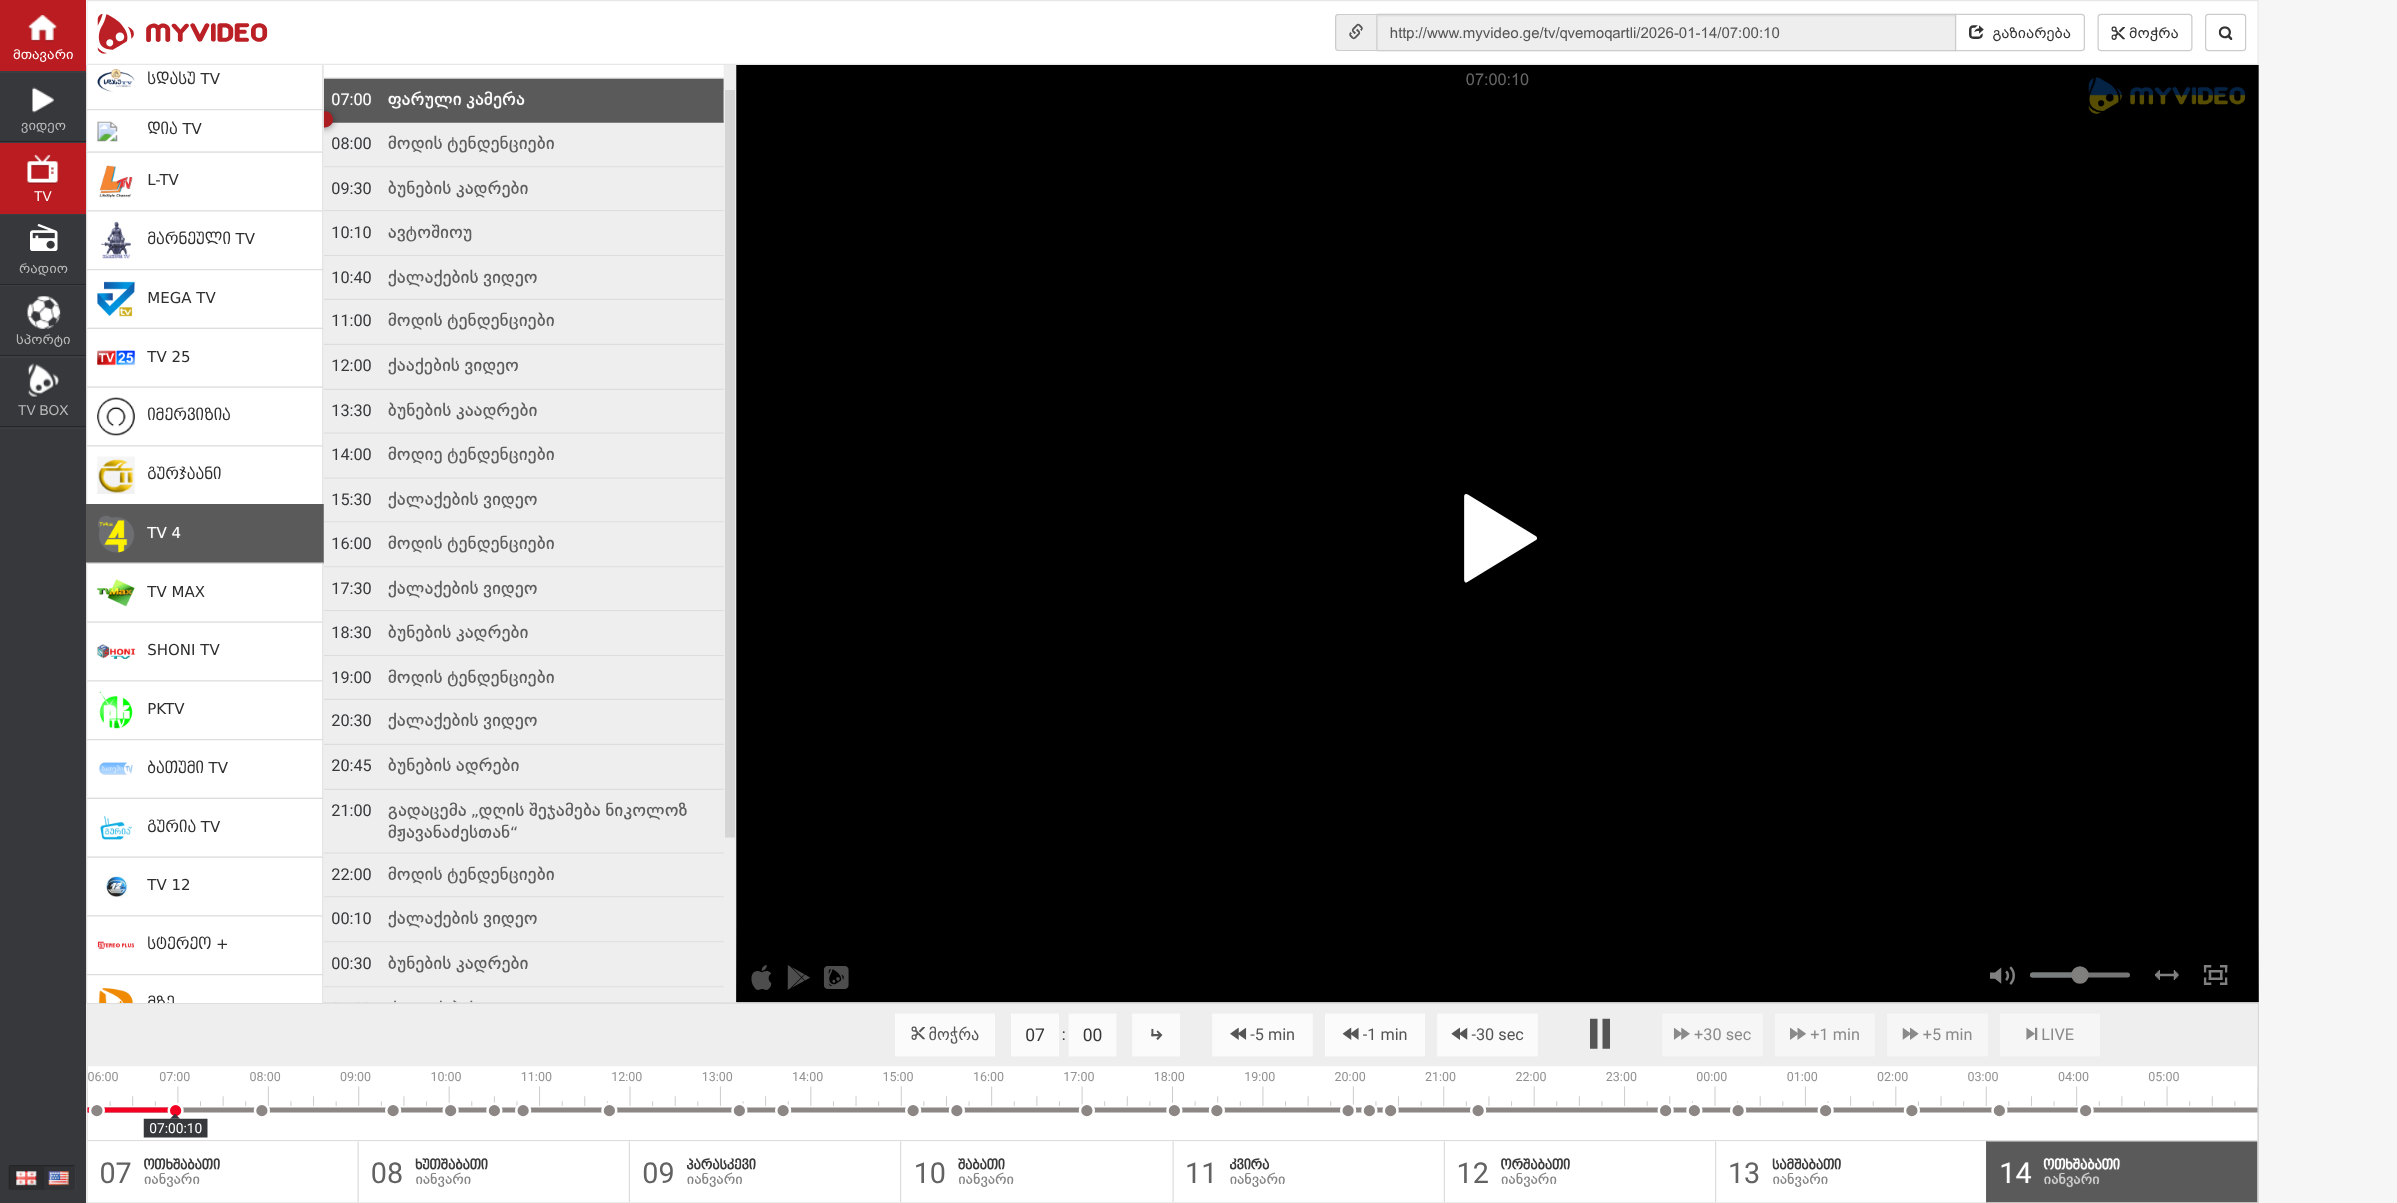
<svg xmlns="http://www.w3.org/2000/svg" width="2397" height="1203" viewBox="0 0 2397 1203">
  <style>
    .t1 { font: 13.75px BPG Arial; fill: #fff; }
    .t2 { font: 13.75px BPG Arial; fill: #bababb; }
  </style>
  <rect width="100%" height="100%" fill="#fff"/>
  <rect x="0" y="73" width="86" height="1130" fill="#37383b"/>
  <rect x="0" y="71" width="86" height="2" fill="#3d3e41"/>
  <rect x="0" y="0" width="86" height="71" fill="#bb1c21"/>
  <image x="28" y="15" width="29" height="27" href="images/1.png"/>
  <text x="13" y="59" class="t1">მთავარი</text>
  <rect x="0" y="142" width="86" height="1" fill="#3d3e41"/>
  <rect x="0" y="141" width="86" height="1" fill="#262729"/>
  <image x="32" y="87" width="22" height="26" href="images/2.png"/>
  <text x="21" y="130" class="t2">ვიდეო</text>
  <rect x="0" y="214" width="86" height="1" fill="#3d3e41"/>
  <rect x="0" y="143" width="86" height="71" fill="#bb1c21"/>
  <image x="27" y="154" width="32" height="30" href="images/3.png"/>
  <text x="34" y="201" class="t1">TV</text>
  <rect x="0" y="285" width="86" height="1" fill="#3d3e41"/>
  <rect x="0" y="284" width="86" height="1" fill="#262729"/>
  <image x="30" y="224" width="28" height="27" href="images/4.png"/>
  <text x="19" y="273" class="t2">რადიო</text>
  <rect x="0" y="356" width="86" height="2" fill="#3d3e41"/>
  <rect x="0" y="355" width="86" height="1" fill="#262729"/>
  <image x="27" y="296" width="34" height="33" href="images/5.png"/>
  <text x="16" y="344" class="t2">სპორტი</text>
  <rect x="0" y="428" width="86" height="1" fill="#3d3e41"/>
  <rect x="0" y="426" width="86" height="1" fill="#262729"/>
  <image x="27" y="363" width="32" height="35" href="images/6.png"/>
  <text x="18" y="415" class="t2">TV BOX</text>
  <image x="8" y="1165" width="35" height="25" href="images/7.png"/>
  <image x="42" y="1165" width="34" height="25" href="images/8.png"/>
  <image x="86" y="0" width="2311" height="1203" href="images/9.png"/>
</svg>
